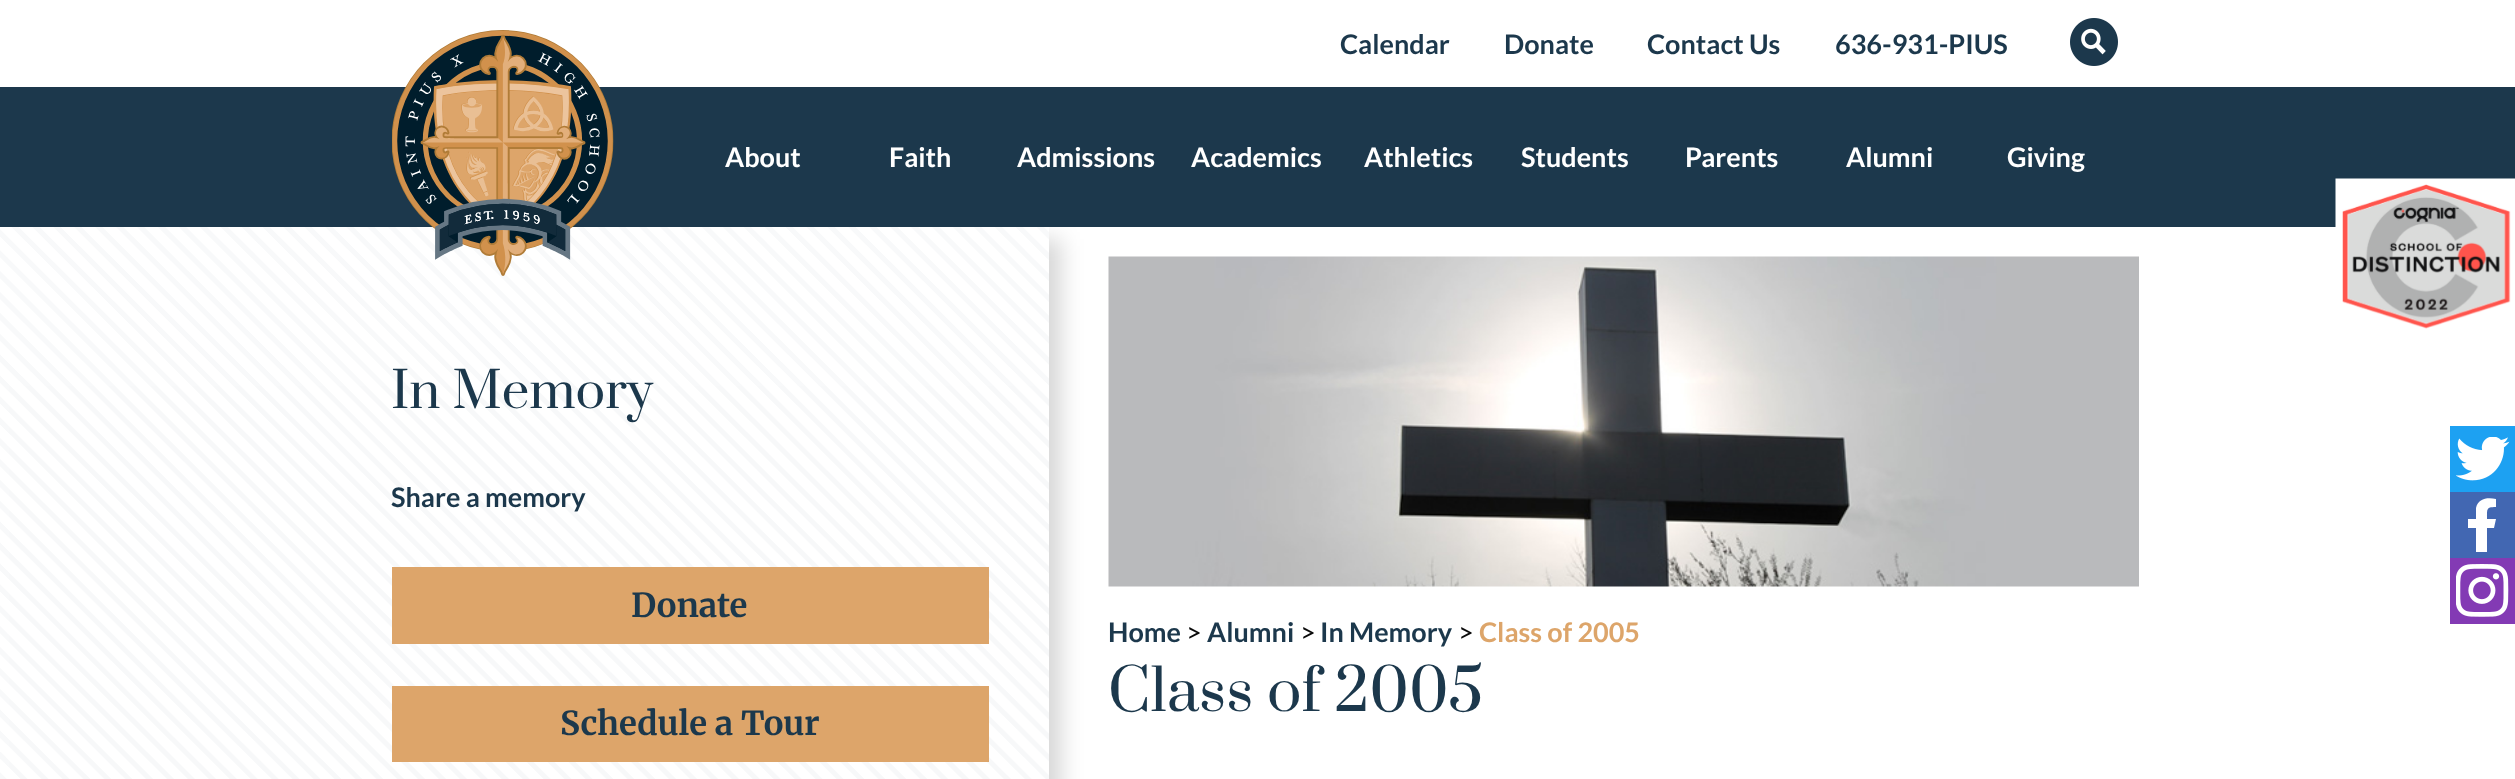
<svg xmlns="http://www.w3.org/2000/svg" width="2515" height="779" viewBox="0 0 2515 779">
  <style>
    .t1 { font: bold 27px Lato; fill: #1c384c; }
    .t2 { font: bold 27px Lato; fill: #fff; }
    .t3 { font: 49px Prata; fill: #1c384c; }
    .t4 { font: 300 33px Merriweather; fill: #1c384c; }
    .t5 { font: 27px Lato; fill: #0a0a0a; }
    .t6 { font: bold 27px Lato; fill: #dda56a; }
    .t7 { font: 57px Prata; fill: #1c384c; }
  </style>
  <defs>
    <clipPath id="clip1"><path d="M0 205H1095V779H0ZM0 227H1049V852H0Z" clip-rule="evenodd"/></clipPath>
  </defs>
  <rect width="100%" height="100%" fill="#fff"/>
  <g clip-path="url(#clip1)">
    <rect x="12" y="239" width="1049" height="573" fill="#00000029" filter="blur(11px)"/>
  </g>
  <rect x="0" y="87" width="2515" height="140" fill="#1c384c"/>
  <image x="0" y="227" width="1049" height="552" href="images/3.png"/>
  <image x="392" y="30" width="222" height="246" href="images/1.png"/>
  <text x="1340" y="54" class="t1">Calendar</text>
  <text x="1504" y="54" class="t1">Donate</text>
  <text x="1647" y="54" class="t1">Contact Us</text>
  <text x="1835" y="54" class="t1">636-931-PIUS</text>
  <image x="2070" y="18" width="48" height="48" href="images/2.png"/>
  <text x="725" y="167" class="t2">About</text>
  <text x="889" y="167" class="t2">Faith</text>
  <text x="1017" y="167" class="t2">Admissions</text>
  <text x="1191" y="167" class="t2">Academics</text>
  <text x="1364" y="167" class="t2">Athletics</text>
  <text x="1521" y="167" class="t2">Students</text>
  <text x="1685" y="167" class="t2">Parents</text>
  <text x="1846" y="167" class="t2">Alumni</text>
  <text x="2007" y="167" class="t2">Giving</text>
  <text x="391" y="408" class="t3">In Memory</text>
  <text x="391" y="507" class="t1">Share a memory</text>
  <rect x="392" y="567" width="597" height="77" fill="#dda56a"/>
  <text x="631" y="617" class="t4">Donate</text>
  <rect x="392" y="686" width="597" height="76" fill="#dda56a"/>
  <text x="560" y="735" class="t4">Schedule a Tour</text>
  <image x="1108" y="256" width="1031" height="331" href="images/4.png"/>
  <text x="1108" y="642" class="t1">Home</text>
  <text x="1186" y="642" class="t5">&gt;</text>
  <text x="1207" y="642" class="t1">Alumni</text>
  <text x="1300" y="642" class="t5">&gt;</text>
  <text x="1320" y="642" class="t1">In Memory</text>
  <text x="1458" y="642" class="t5">&gt;</text>
  <text x="1479" y="642" class="t6">Class of 2005</text>
  <text x="1108" y="711" class="t7">Class of 2005</text>
  <image x="2335" y="178" width="180" height="151" href="images/5.png"/>
  <rect x="2450" y="426" width="65" height="66" fill="#1da1f2"/>
  <image x="2456" y="437" width="54" height="44" href="images/6.png"/>
  <rect x="2450" y="492" width="65" height="66" fill="#4267b2"/>
  <path d="M2494 528L2496 519H2487C2487 509 2486 507 2496 507V499C2488 497 2478 498 2476 508V519H2468V528H2476V552H2487V528Z" fill="#fff"/>
  <rect x="2450" y="558" width="65" height="66" fill="#833ab4"/>
  <image x="2456" y="564" width="53" height="53" href="images/7.png"/>
</svg>
